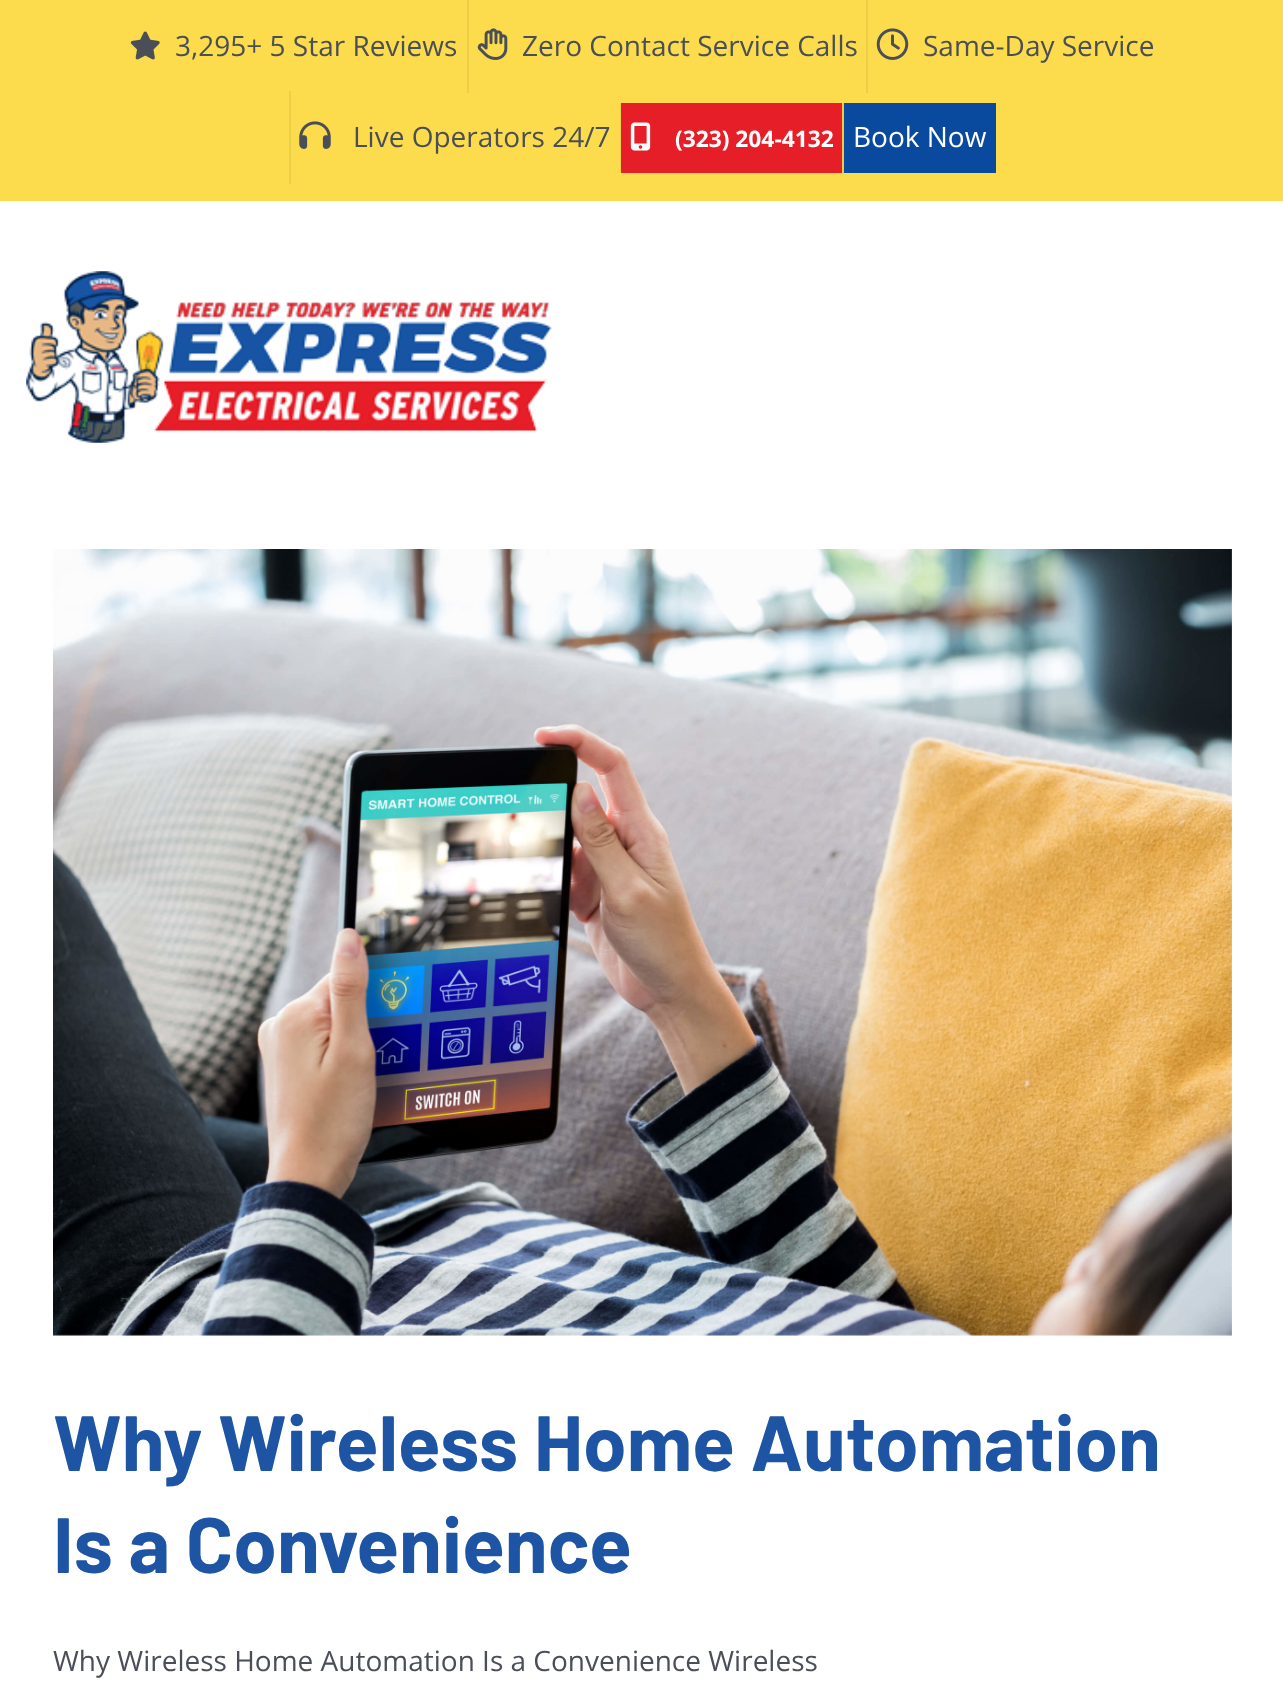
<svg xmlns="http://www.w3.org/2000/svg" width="1283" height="1698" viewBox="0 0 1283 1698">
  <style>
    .t1 { font: 28px Open Sans; fill: #4a4e57; }
    .t2 { font: bold 22.75px Open Sans; fill: #fff; }
    .t3 { font: 28px Open Sans; fill: #fff; }
    .t4 { font: bold 78.4px Barlow; fill: #1d54a4; }
  </style>
  <rect width="100%" height="100%" fill="#fff"/>
  <rect x="0" y="0" width="1283" height="201" fill="#fcdc4c"/>
  <image x="130" y="31" width="30" height="29" href="images/1.png"/>
  <text x="175" y="56" class="t1">3,295+ 5 Star Reviews</text>
  <rect x="467" y="0" width="2" height="93" fill="#edcf47"/>
  <image x="477" y="28" width="31" height="32" href="images/2.png"/>
  <text x="522" y="56" class="t1">Zero Contact Service Calls</text>
  <rect x="866" y="0" width="2" height="93" fill="#edcf47"/>
  <image x="876" y="28" width="33" height="32" href="images/3.png"/>
  <text x="923" y="56" class="t1">Same-Day Service</text>
  <rect x="289" y="91" width="2" height="93" fill="#edcf47"/>
  <image x="299" y="121" width="32" height="28" href="images/4.png"/>
  <text x="353" y="147" class="t1">Live Operators 24/7</text>
  <rect x="620" y="103" width="1" height="70" fill="#edcf47"/>
  <rect x="621" y="103" width="221" height="70" fill="#e61e28"/>
  <image x="630" y="122" width="21" height="29" href="images/5.png"/>
  <text x="675" y="147" class="t2">(323) 204-4132</text>
  <rect x="842" y="103" width="2" height="70" fill="#edcf47"/>
  <rect x="844" y="103" width="152" height="70" fill="#094a9e"/>
  <text x="853" y="147" class="t3">Book Now</text>
  <image x="26" y="271" width="526" height="172" href="images/6.png"/>
  <image x="53" y="549" width="1179" height="787" href="images/7.png"/>
  <text x="53" y="1471" class="t4">Why Wireless Home Automation</text>
  <text x="53" y="1573" class="t4">Is a Convenience</text>
  <text x="53" y="1671" class="t1">Why Wireless Home Automation Is a Convenience Wireless</text>
</svg>
